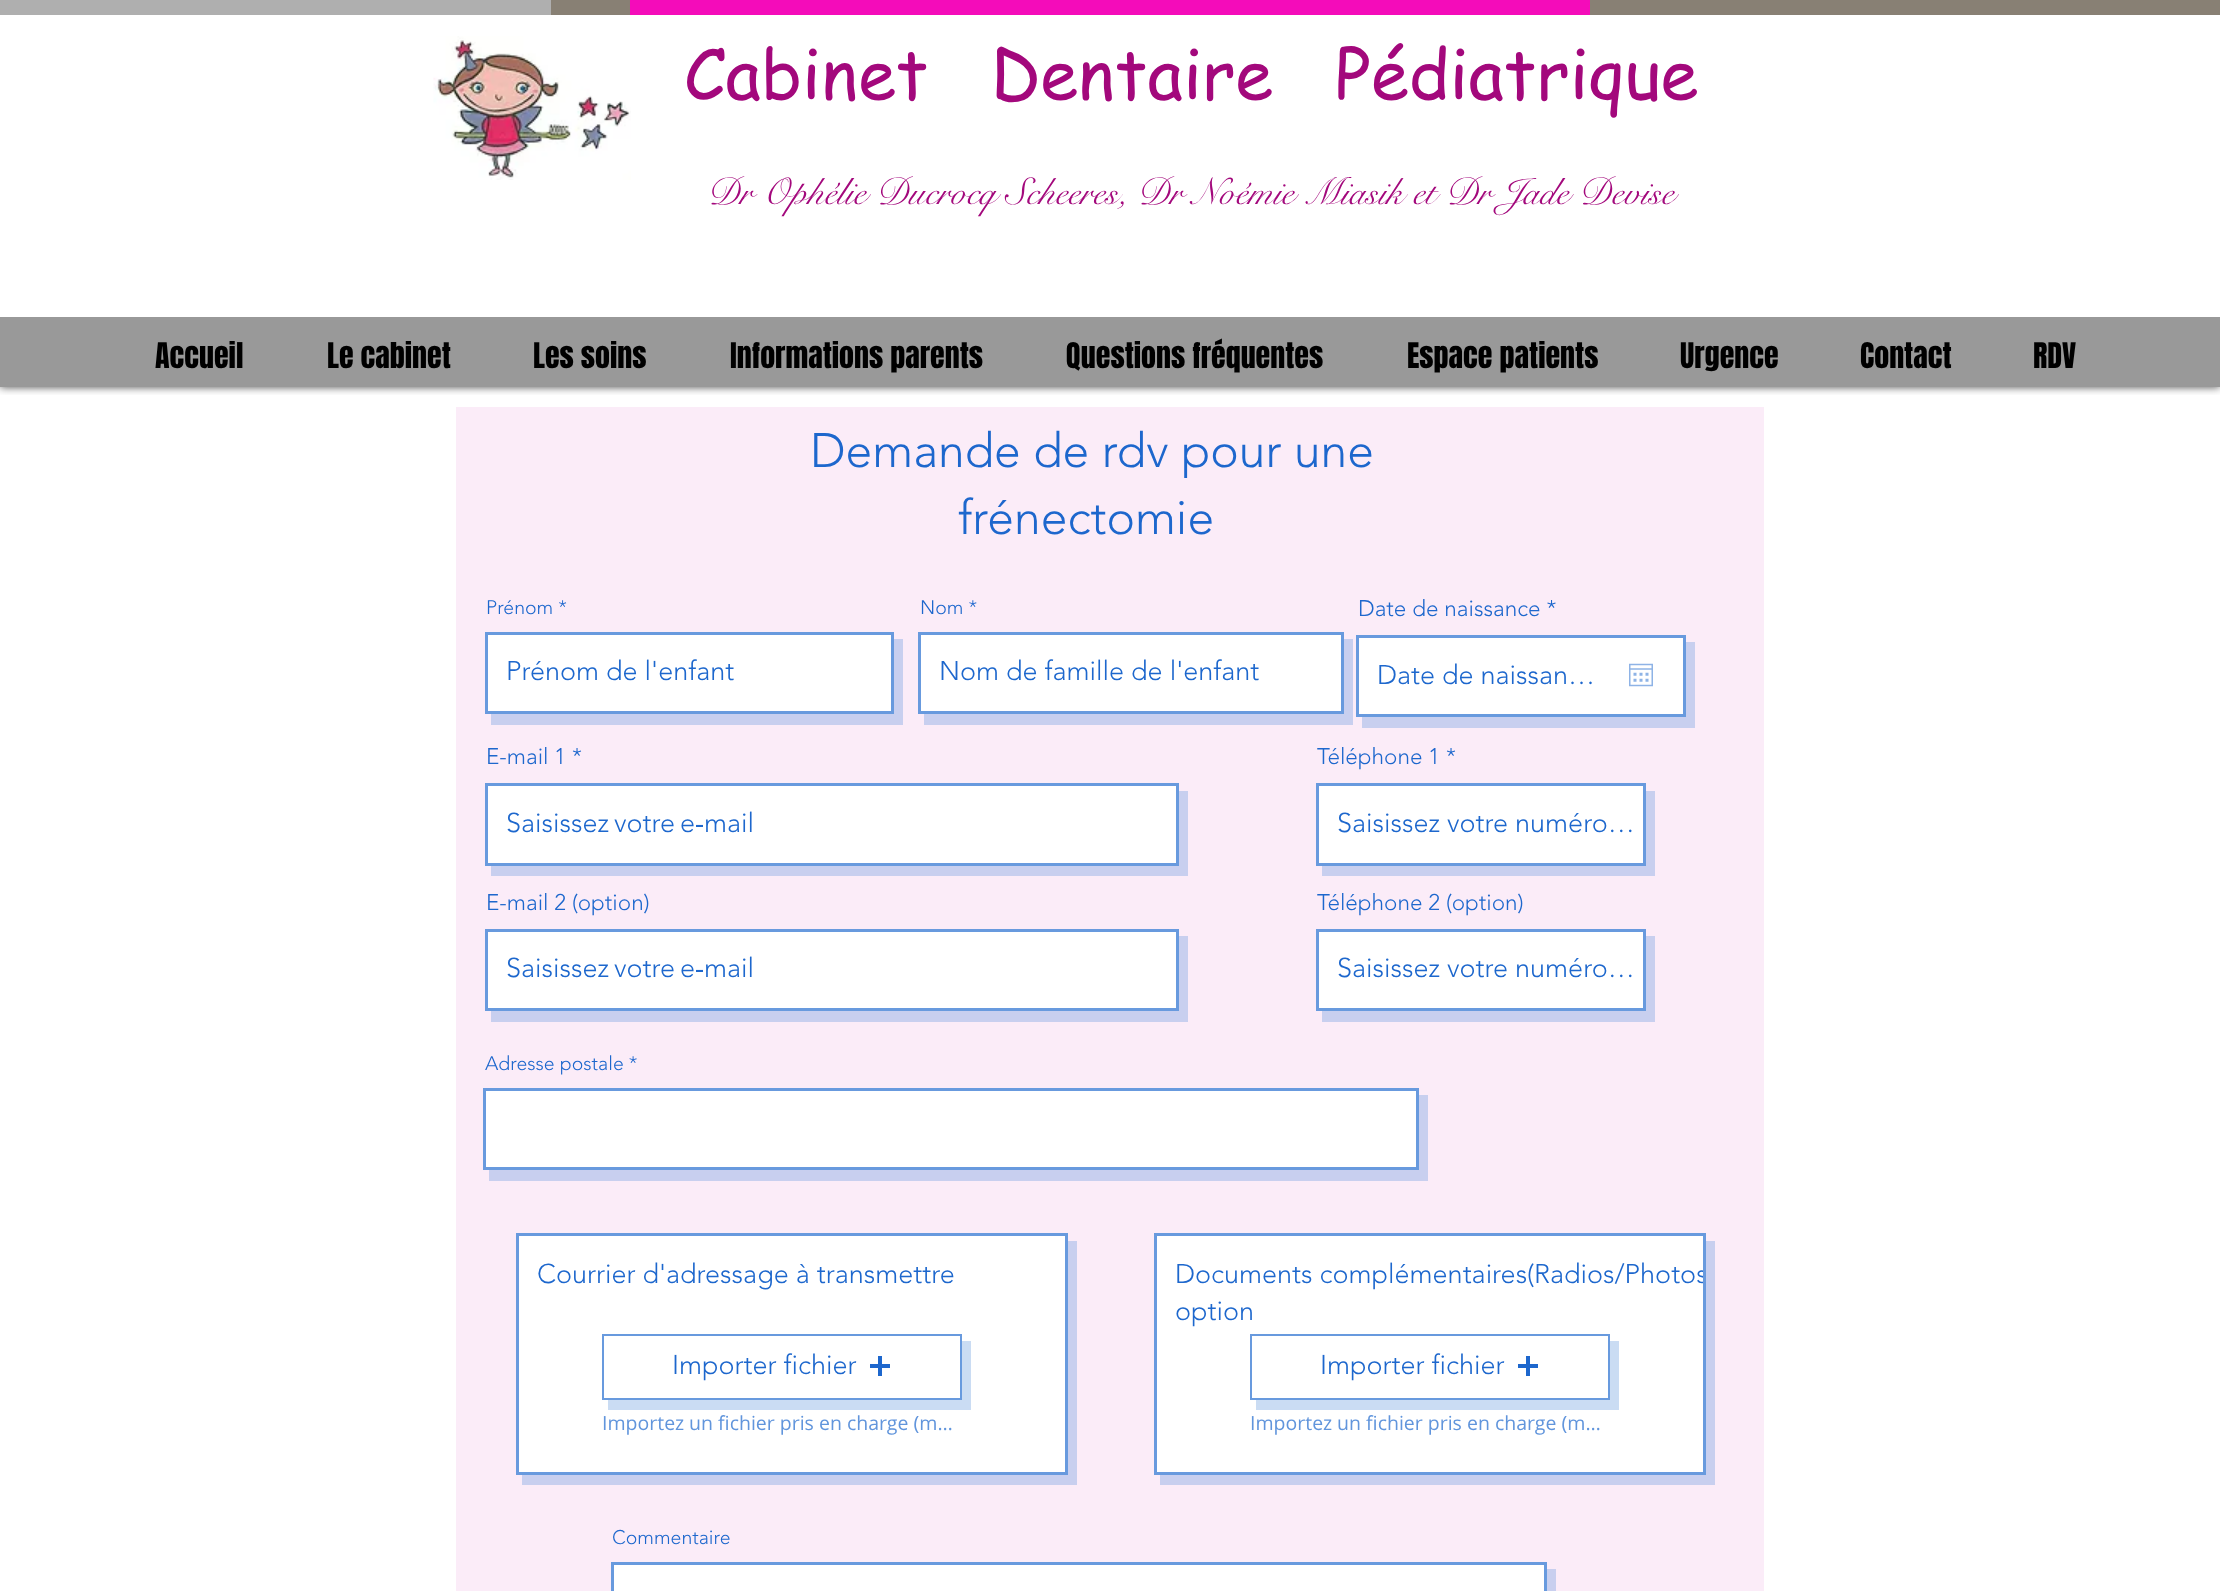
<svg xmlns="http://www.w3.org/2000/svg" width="2220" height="1591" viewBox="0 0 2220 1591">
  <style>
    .t1 { font: 69px 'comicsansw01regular'; fill: #a3087c; }
    .t2 { font: 37.5px 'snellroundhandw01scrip'; fill: #a3087c; }
    .t3 { font: 30px Anton; fill: #000; }
    .t4 { font: 300 48px 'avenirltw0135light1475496'; fill: #1d67cd; }
    .t5 { font: 300 19.5px 'avenirltw0135light1475496'; fill: #1d67cd; }
    .t6 { font: 300 27px 'avenirltw0135light1475496'; fill: #1d67cd; }
    .t7 { font: 300 22.5px 'avenirltw0135light1475496'; fill: #1d67cd; }
    .t8 { font: 19.5px Open Sans; fill: #6195dc; }
  </style>
  <defs>
    <clipPath id="clip1"><rect x="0" y="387" width="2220" height="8"/></clipPath>
    <clipPath id="clip2"><rect x="1157" y="1236" width="546" height="236"/></clipPath>
  </defs>
  <rect width="100%" height="100%" fill="#fff"/>
  <g clip-path="url(#clip1)">
    <rect x="0" y="0" width="2220" height="387" fill="#000000b3" filter="blur(4px)"/>
  </g>
  <rect x="0" y="0" width="551" height="15" fill="#afafaf"/>
  <rect x="551" y="0" width="1669" height="15" fill="#888074"/>
  <rect x="630" y="0" width="960" height="15" fill="#f40cba"/>
  <image x="433" y="36" width="198" height="144" href="images/1.png"/>
  <text x="684" y="99" class="t1" xml:space="preserve">Cabinet   Dentaire   Pédiatrique</text>
  <text x="707" y="204" class="t2">Dr Ophélie Ducrocq Scheeres, Dr Noémie Miasik et Dr Jade Devise</text>
  <rect x="0" y="317" width="2220" height="70" fill="#999"/>
  <text x="155" y="368" class="t3">Accueil</text>
  <text x="327" y="368" class="t3">Le cabinet</text>
  <text x="533" y="368" class="t3">Les soins</text>
  <text x="730" y="368" class="t3">Informations parents</text>
  <text x="1066" y="368" class="t3">Questions fréquentes</text>
  <text x="1407" y="368" class="t3">Espace patients</text>
  <text x="1680" y="368" class="t3">Urgence</text>
  <text x="1860" y="368" class="t3">Contact</text>
  <text x="2033" y="368" class="t3">RDV</text>
  <rect x="456" y="407" width="1308" height="1184" fill="#fbecf8"/>
  <text x="810" y="467" class="t4">Demande de rdv pour une</text>
  <text x="958" y="534" class="t4">frénectomie</text>
  <text x="486" y="614" class="t5">Prénom *</text>
  <path d="M491 714V725H903V639H894V714Z" fill="#c8cfef"/>
  <rect x="486.5" y="633.5" width="406" height="79" fill="#fff" stroke="#689ade" stroke-width="3"/>
  <text x="506" y="680" class="t6">Prénom de l'enfant</text>
  <text x="920" y="614" class="t5">Nom *</text>
  <path d="M924 714V725H1353V639H1344V714Z" fill="#c8cfef"/>
  <rect x="919.5" y="633.5" width="423" height="79" fill="#fff" stroke="#689ade" stroke-width="3"/>
  <text x="939" y="680" class="t6">Nom de famille de l'enfant</text>
  <text x="1358" y="616" class="t7">Date de naissance *</text>
  <path d="M1362 717V728H1695V642H1686V717Z" fill="#c8cfef"/>
  <rect x="1357.5" y="636.5" width="327" height="79" fill="#fff" stroke="#689ade" stroke-width="3"/>
  <text x="1377" y="684" class="t6">Date de naissan…</text>
  <image x="1629" y="663" width="24" height="24" href="images/2.png"/>
  <text x="486" y="764" class="t7">E-mail 1 *</text>
  <path d="M491 866V876H1188V791H1179V866Z" fill="#c8cfef"/>
  <rect x="486.5" y="784.5" width="691" height="80" fill="#fff" stroke="#689ade" stroke-width="3"/>
  <text x="506" y="832" word-spacing="-2" class="t6">Saisissez votre e‑mail</text>
  <text x="1317" y="764" class="t7">Téléphone 1 *</text>
  <path d="M1322 866V876H1655V791H1646V866Z" fill="#c8cfef"/>
  <rect x="1317.5" y="784.5" width="327" height="80" fill="#fff" stroke="#689ade" stroke-width="3"/>
  <text x="1337" y="832" class="t6">Saisissez votre numéro…</text>
  <text x="486" y="910" class="t7">E-mail 2 (option)</text>
  <path d="M491 1011V1022H1188V936H1179V1011Z" fill="#c8cfef"/>
  <rect x="486.5" y="930.5" width="691" height="79" fill="#fff" stroke="#689ade" stroke-width="3"/>
  <text x="506" y="977" word-spacing="-2" class="t6">Saisissez votre e‑mail</text>
  <text x="1317" y="910" class="t7">Téléphone 2 (option)</text>
  <path d="M1322 1011V1022H1655V936H1646V1011Z" fill="#c8cfef"/>
  <rect x="1317.5" y="930.5" width="327" height="79" fill="#fff" stroke="#689ade" stroke-width="3"/>
  <text x="1337" y="977" class="t6">Saisissez votre numéro…</text>
  <text x="485" y="1070" class="t5">Adresse postale *</text>
  <path d="M489 1170V1181H1428V1095H1419V1170Z" fill="#c8cfef"/>
  <rect x="484.5" y="1089.5" width="933" height="79" fill="#fff" stroke="#689ade" stroke-width="3"/>
  <path d="M522 1474V1485H1077V1241H1068V1474Z" fill="#c8cfef"/>
  <rect x="517.5" y="1234.5" width="549" height="239" fill="#fff" stroke="#689ade" stroke-width="3"/>
  <text x="537" y="1283" class="t6">Courrier d'adressage à transmettre</text>
  <path d="M1160 1474V1485H1715V1241H1706V1474Z" fill="#c8cfef"/>
  <rect x="1155.5" y="1234.5" width="549" height="239" fill="#fff" stroke="#689ade" stroke-width="3"/>
  <text x="1175" y="1283" class="t6">Documents complémentaires</text>
  <g clip-path="url(#clip2)">
    <text x="1527" y="1283" class="t6">(Radios/Photos</text>
  </g>
  <text x="1175" y="1320" class="t6">option</text>
  <path d="M608 1400V1410H971V1341H962V1400Z" fill="#cadcf3"/>
  <rect x="603" y="1335" width="358" height="64" fill="none" stroke="#689ade" stroke-width="2"/>
  <text x="672" y="1374" class="t6">Importer fichier</text>
  <rect x="878" y="1356" width="4" height="20" fill="#1d67cd"/>
  <rect x="870" y="1364" width="20" height="4" fill="#1d67cd"/>
  <text x="602" y="1430" class="t8">Importez un fichier pris en charge (m…</text>
  <path d="M1256 1400V1410H1619V1341H1610V1400Z" fill="#cadcf3"/>
  <rect x="1251" y="1335" width="358" height="64" fill="none" stroke="#689ade" stroke-width="2"/>
  <text x="1320" y="1374" class="t6">Importer fichier</text>
  <rect x="1526" y="1356" width="4" height="20" fill="#1d67cd"/>
  <rect x="1518" y="1364" width="20" height="4" fill="#1d67cd"/>
  <text x="1250" y="1430" class="t8">Importez un fichier pris en charge (m…</text>
  <text x="612" y="1544" class="t5">Commentaire</text>
  <path d="M617 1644V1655H1556V1569H1546V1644Z" fill="#c8cfef"/>
  <rect x="612.5" y="1563.5" width="933" height="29" fill="#fff" stroke="#689ade" stroke-width="3"/>
</svg>
